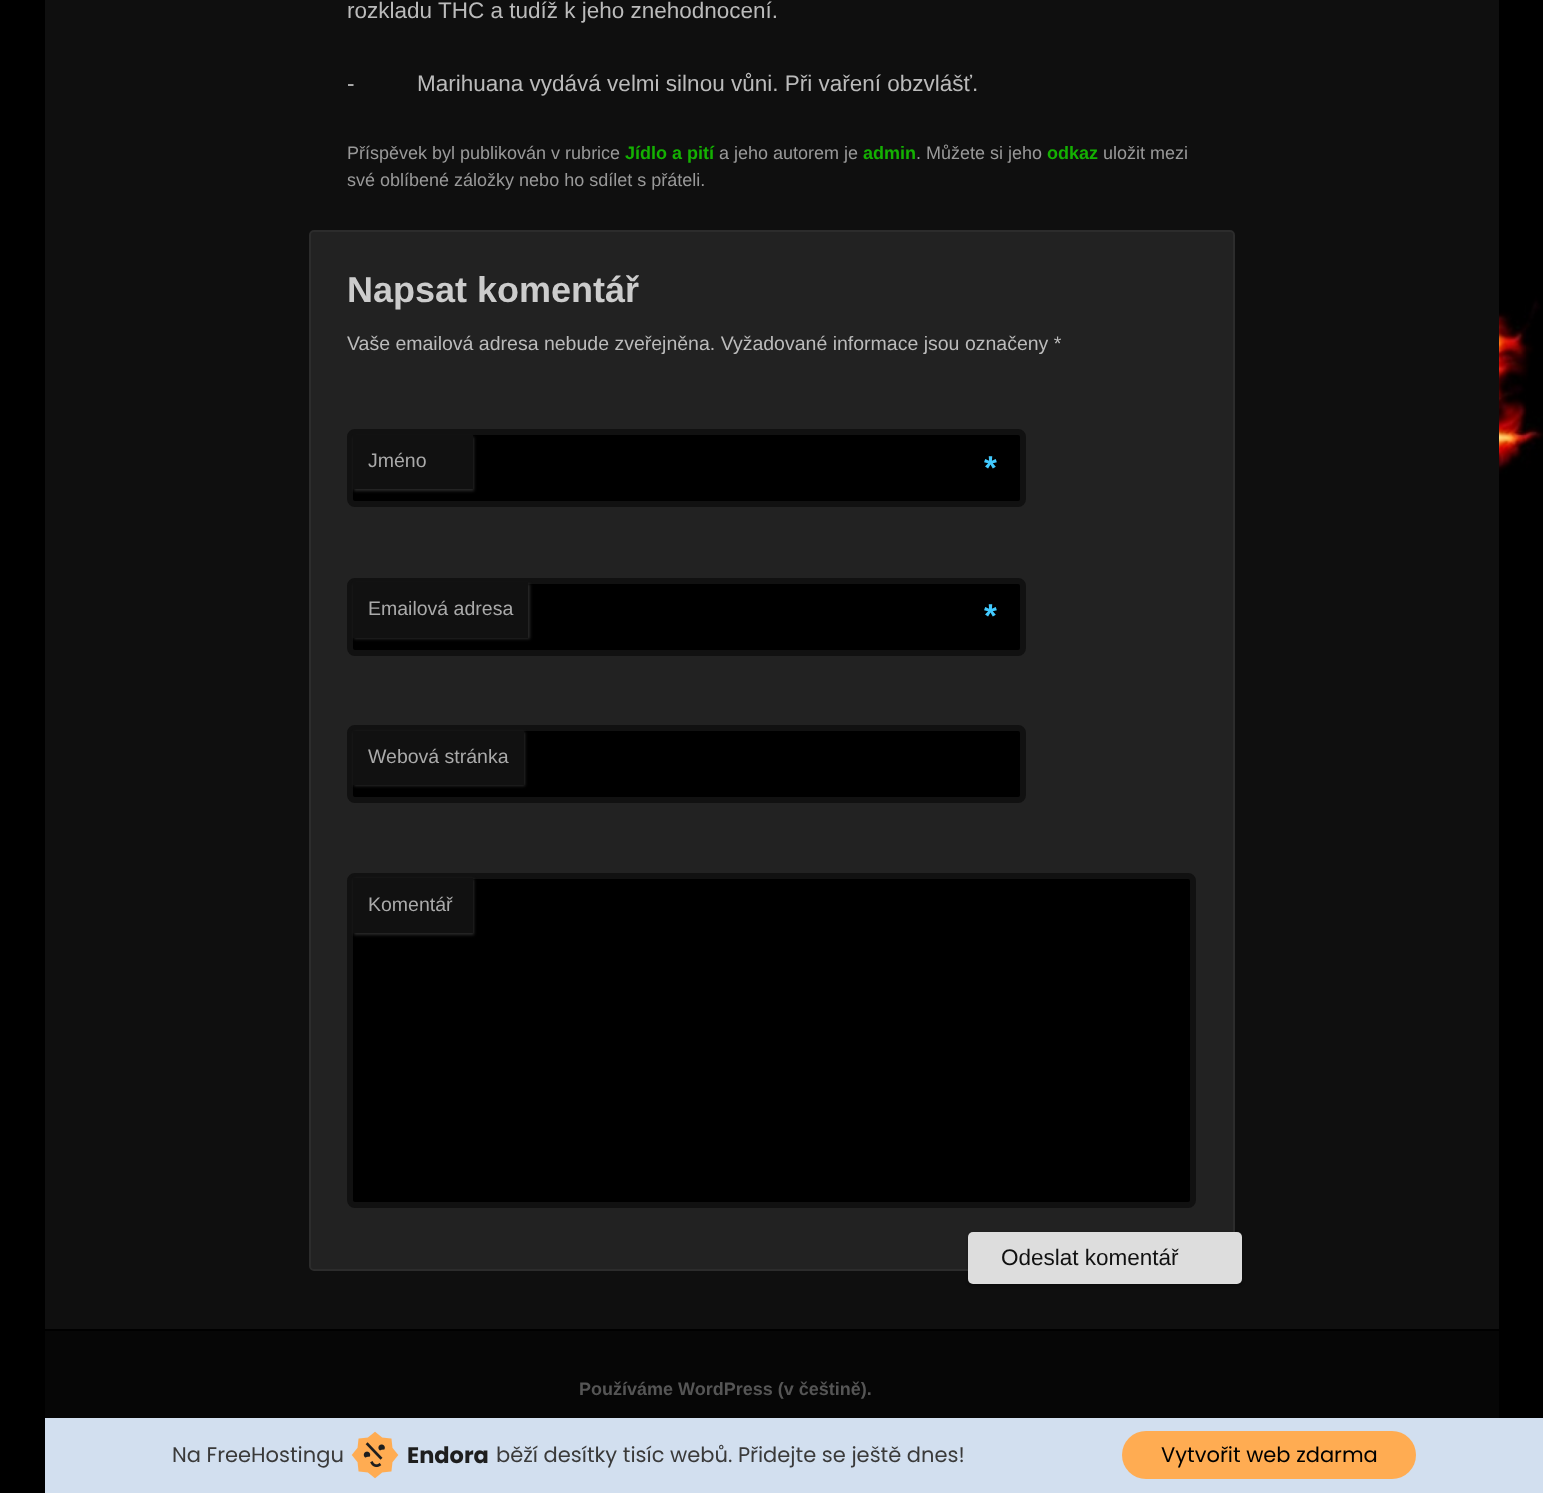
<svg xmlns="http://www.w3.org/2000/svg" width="1543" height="1493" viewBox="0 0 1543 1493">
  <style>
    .t1 { font: 22.5px Liberation Sans; fill: #bbb; }
    .t2 { font: 18px Liberation Sans; fill: #999; }
    .t3 { font: bold 18px Liberation Sans; fill: #14b102; }
    .t4 { font: bold 36px Liberation Sans; fill: #ccc; }
    .t5 { font: 19.5px Liberation Sans; fill: #bbb; }
    .t6 { font: 19.5px Liberation Sans; fill: #aaa; }
    .t7 { font: bold 33px Liberation Sans; fill: #42caff; }
    .t8 { font: 22.5px Liberation Sans; fill: #111; }
    .t9 { font: bold 18px Liberation Sans; fill: #555; }
    .t10 { font: 21px Poppins; fill: #3a3a3a; }
    .t11 { font: bold 22.5px Poppins; fill: #1e1e1e; }
    .t12 { font: 21px Poppins; fill: #000; }
  </style>
  <rect width="100%" height="100%" fill="#000"/>
  <image x="1499" y="246" width="44" height="275" href="images/1.png"/>
  <rect x="45" y="0" width="1454" height="1329" fill="#0f0f0f"/>
  <text x="347" y="18" class="t1">rozkladu THC a tudíž k jeho znehodnocení.</text>
  <text x="347" y="91" class="t1" xml:space="preserve">-          Marihuana vydává velmi silnou vůni. Při vaření obzvlášť.</text>
  <text x="347" y="159" class="t2">Příspěvek byl publikován v rubrice</text>
  <text x="625" y="159" class="t3">Jídlo a pití</text>
  <text x="719" y="159" class="t2">a jeho autorem je</text>
  <text x="863" y="159" class="t3">admin</text>
  <text x="916" y="159" class="t2">. Můžete si jeho</text>
  <text x="1047" y="159" class="t3">odkaz</text>
  <text x="1103" y="159" class="t2">uložit mezi</text>
  <text x="347" y="186" class="t2">své oblíbené záložky nebo ho sdílet s přáteli.</text>
  <rect x="310" y="231" width="924" height="1039" rx="4" fill="#222" stroke="#2c2c2c" stroke-width="2"/>
  <text x="347" y="302" class="t4">Napsat komentář</text>
  <text x="347" y="350" class="t5">Vaše emailová adresa nebude zveřejněna. Vyžadované informace jsou označeny *</text>
  <rect x="350" y="432" width="673" height="72" rx="5" fill="#000" stroke="#111" stroke-width="6"/>
  <rect x="354" y="437" width="120" height="54" fill="#333333cc" filter="blur(1.5px)"/>
  <rect x="353" y="435" width="120" height="54" fill="#111"/>
  <text x="368" y="467" class="t6">Jméno</text>
  <text x="984" y="479" class="t7">*</text>
  <rect x="350" y="581" width="673" height="72" rx="5" fill="#000" stroke="#111" stroke-width="6"/>
  <rect x="354" y="584" width="176" height="55" fill="#333333cc" filter="blur(1.5px)"/>
  <rect x="353" y="582" width="175" height="56" fill="#111"/>
  <text x="368" y="615" class="t6">Emailová adresa</text>
  <text x="984" y="627" class="t7">*</text>
  <rect x="350" y="728" width="673" height="72" rx="5" fill="#000" stroke="#111" stroke-width="6"/>
  <rect x="354" y="732" width="171" height="54" fill="#333333cc" filter="blur(1.5px)"/>
  <rect x="353" y="731" width="171" height="54" fill="#111"/>
  <text x="368" y="763" class="t6">Webová stránka</text>
  <rect x="350" y="876" width="843" height="329" rx="5" fill="#000" stroke="#111" stroke-width="6"/>
  <rect x="354" y="879" width="120" height="56" fill="#333333cc" filter="blur(1.5px)"/>
  <rect x="353" y="878" width="120" height="55" fill="#111"/>
  <text x="368" y="911" class="t6">Komentář</text>
  <rect x="968" y="1233" width="274" height="53" rx="5" fill="#0000004d" filter="blur(1.5px)"/>
  <rect x="968" y="1232" width="274" height="52" rx="5" fill="#ddd"/>
  <text x="1001" y="1265" class="t8">Odeslat komentář</text>
  <rect x="45" y="1331" width="1454" height="87" fill="#060606"/>
  <text x="579" y="1395" class="t9">Používáme WordPress (v češtině).</text>
  <rect x="45" y="1418" width="1498" height="75" fill="#d2dfef"/>
  <text x="172" y="1462" class="t10">Na FreeHostingu</text>
  <image x="351" y="1431" width="48" height="48" href="images/2.png"/>
  <text x="407" y="1463" class="t11">Endora</text>
  <text x="496" y="1462" class="t10">běží desítky tisíc webů. Přidejte se ještě dnes!</text>
  <rect x="1122" y="1431" width="294" height="48" rx="24" fill="#ffac52"/>
  <text x="1161" y="1462" class="t12">Vytvořit web zdarma</text>
</svg>
